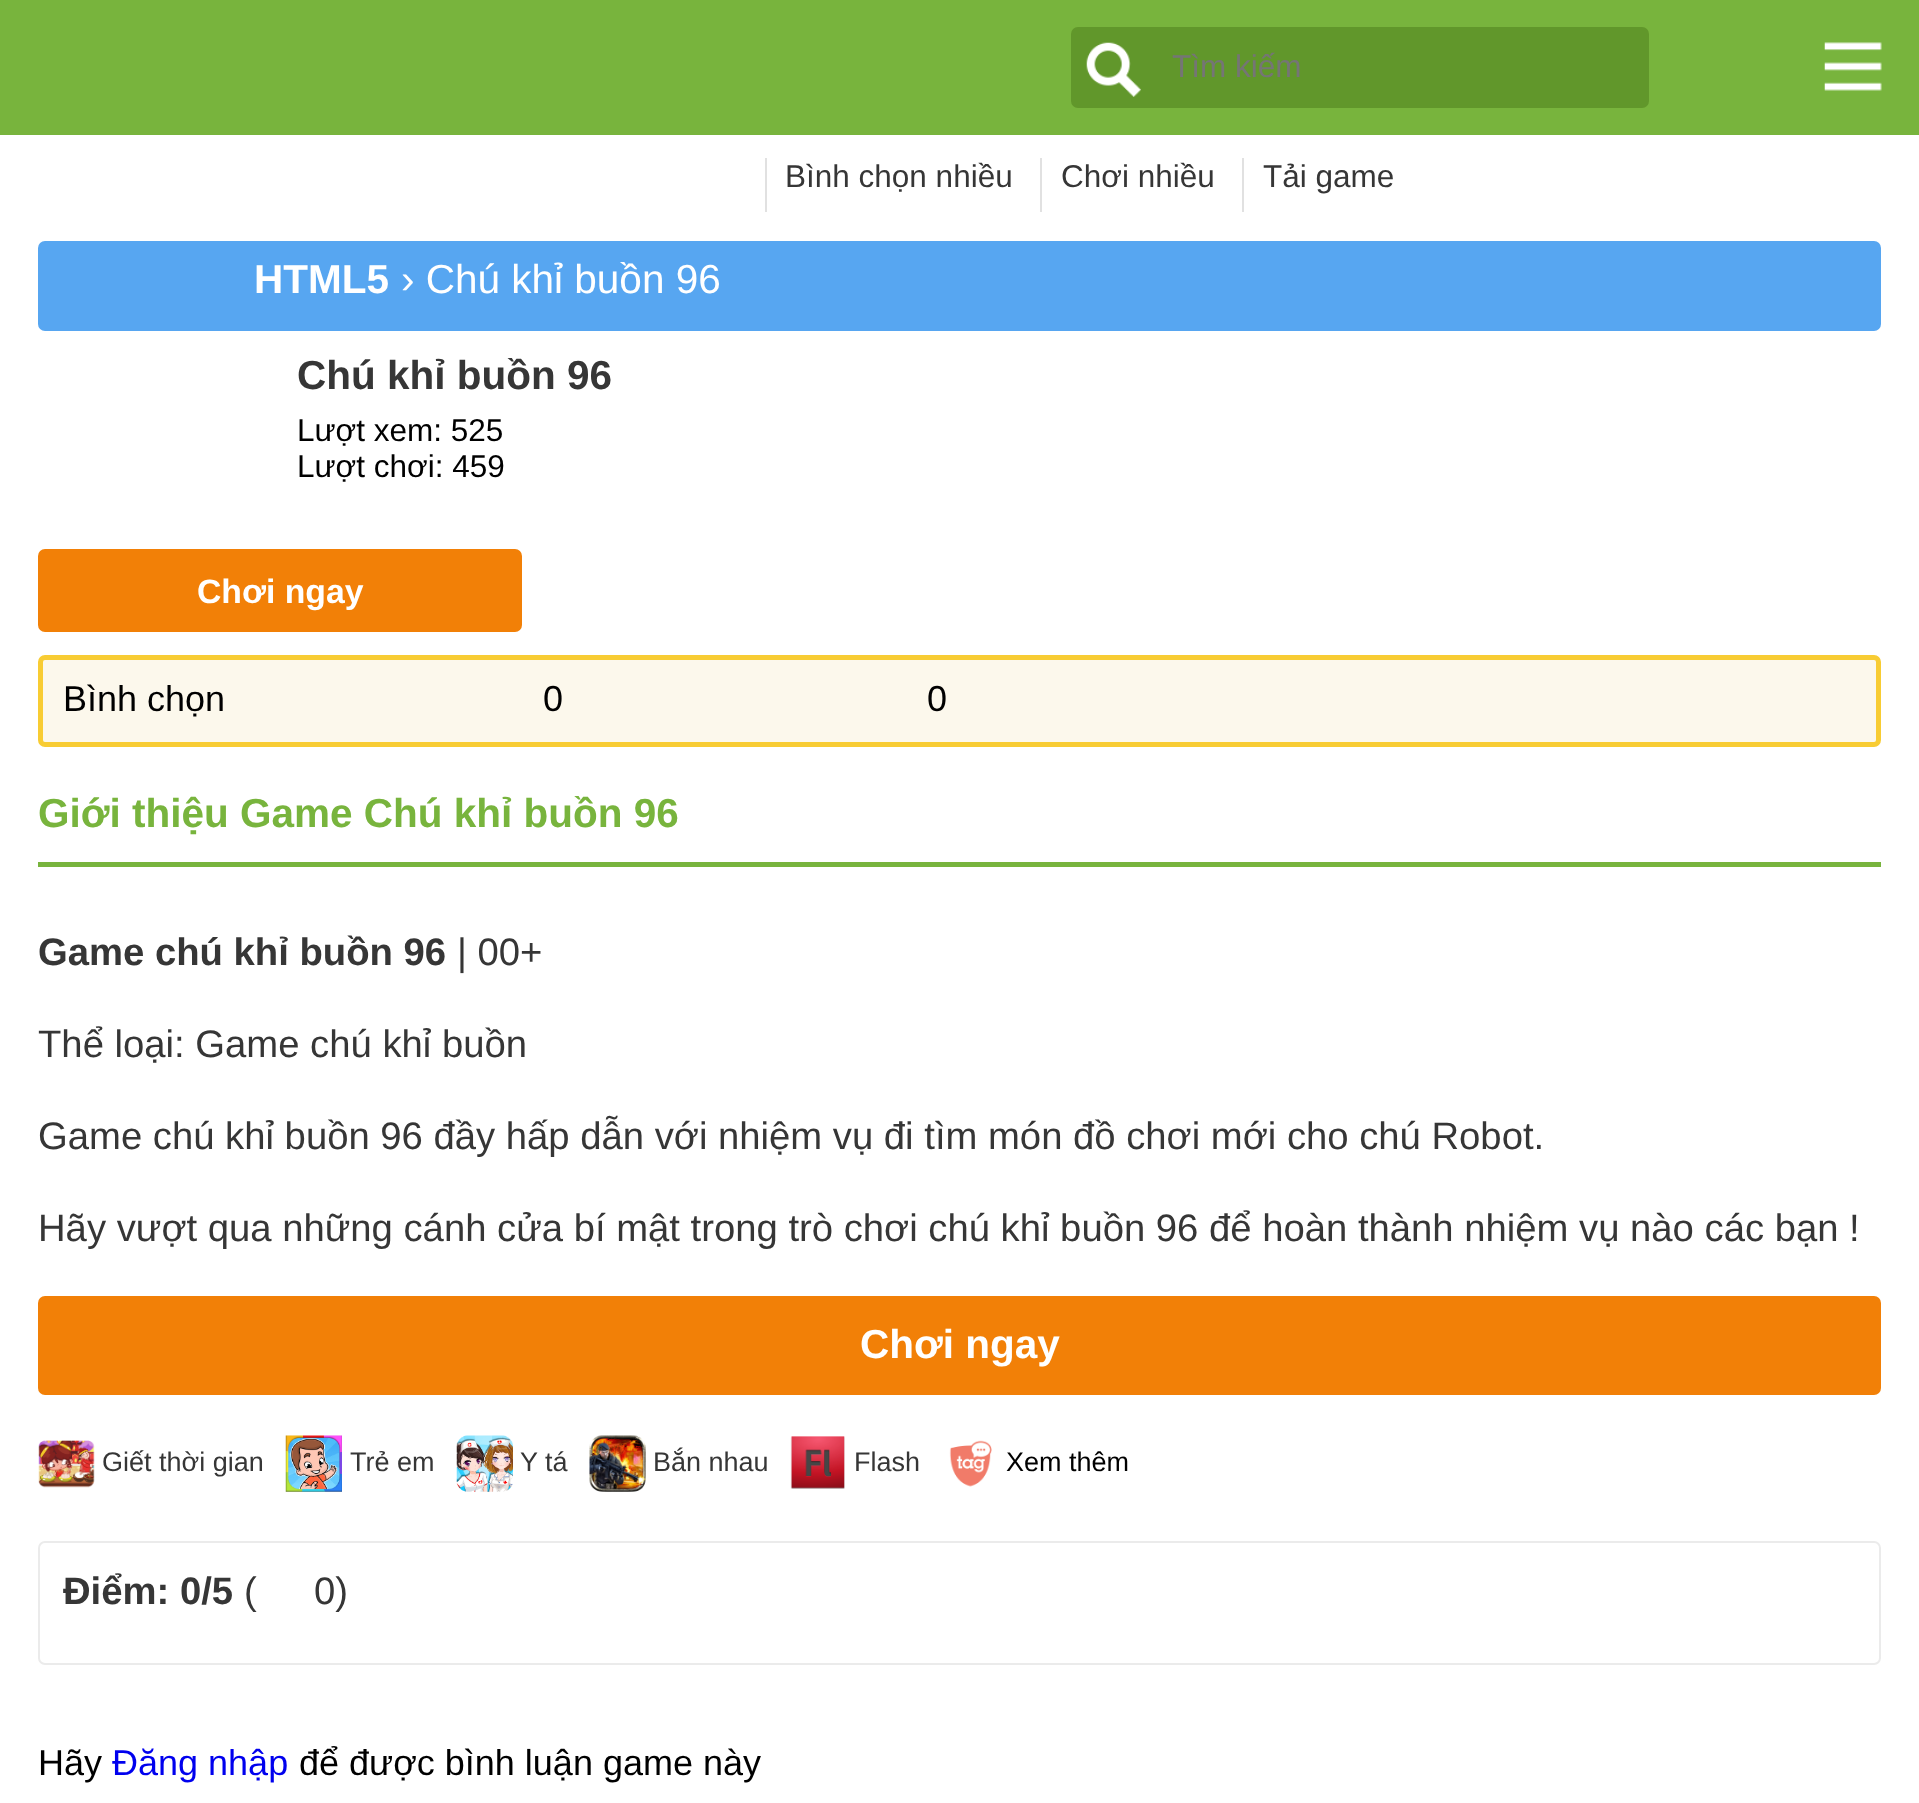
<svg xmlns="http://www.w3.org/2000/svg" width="1919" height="1803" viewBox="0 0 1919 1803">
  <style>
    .t1 { font: 31.5px Liberation Sans; fill: #757575; }
    .t2 { font: 31.5px Liberation Sans; fill: #363636; }
    .t3 { font: bold 40.5px Liberation Sans; fill: #fff; }
    .t4 { font: 40.5px Liberation Sans; fill: #fff; }
    .t5 { font: bold 40.5px Liberation Sans; fill: #363636; }
    .t6 { font: 31.5px Liberation Sans; fill: #000; }
    .t7 { font: bold 33.75px Liberation Sans; fill: #fff; }
    .t8 { font: 36px Liberation Sans; fill: #000; }
    .t9 { font: bold 40.5px Liberation Sans; fill: #78b43d; }
    .t10 { font: bold 38.25px Liberation Sans; fill: #363636; }
    .t11 { font: 38.25px Liberation Sans; fill: #363636; }
    .t12 { font: 27px Liberation Sans; fill: #363636; }
    .t13 { font: 27px Liberation Sans; fill: #000; }
    .t14 { font: 36px Liberation Sans; fill: #00e; }
  </style>
  <rect width="100%" height="100%" fill="#fff"/>
  <rect x="0" y="0" width="1919" height="135" fill="#78b43d"/>
  <rect x="1071" y="27" width="578" height="81" rx="7" fill="#61972b"/>
  <image x="1086" y="42" width="55" height="55" href="images/1.png"/>
  <text x="1172" y="77" class="t1">Tìm kiếm</text>
  <image x="1824" y="42" width="58" height="49" href="images/2.png"/>
  <rect x="765" y="158" width="2" height="54" fill="#e1e1e1"/>
  <text x="785" y="187" class="t2">Bình chọn nhiều</text>
  <rect x="1040" y="158" width="2" height="54" fill="#e1e1e1"/>
  <text x="1061" y="187" class="t2">Chơi nhiều</text>
  <rect x="1242" y="158" width="2" height="54" fill="#e1e1e1"/>
  <text x="1263" y="187" class="t2">Tải game</text>
  <rect x="38" y="241" width="1843" height="90" rx="7" fill="#57a6f1"/>
  <text x="254" y="293" class="t3">HTML5</text>
  <text x="401" y="293" class="t4">› Chú khỉ buồn 96</text>
  <text x="297" y="389" class="t5">Chú khỉ buồn 96</text>
  <text x="297" y="441" class="t6">Lượt xem: 525</text>
  <text x="297" y="477" class="t6">Lượt chơi: 459</text>
  <rect x="38" y="549" width="484" height="83" rx="7" fill="#f28007"/>
  <text x="197" y="603" class="t7">Chơi ngay</text>
  <rect x="40.5" y="657.5" width="1838" height="87" rx="4.5" fill="#fcf8ec" stroke="#f8cc33" stroke-width="5"/>
  <text x="63" y="711" class="t8">Bình chọn</text>
  <text x="543" y="711" class="t8">0</text>
  <text x="927" y="711" class="t8">0</text>
  <rect x="38" y="862" width="1843" height="5" fill="#78b43d"/>
  <text x="38" y="827" class="t9">Giới thiệu Game Chú khỉ buồn 96</text>
  <text x="38" y="965" class="t10">Game chú khỉ buồn 96</text>
  <text x="457" y="965" class="t11">| 00+</text>
  <text x="38" y="1057" class="t11">Thể loại: Game chú khỉ buồn</text>
  <text x="38" y="1149" class="t11">Game chú khỉ buồn 96 đầy hấp dẫn với nhiệm vụ đi tìm món đồ chơi mới cho chú Robot.</text>
  <text x="38" y="1241" class="t11">Hãy vượt qua những cánh cửa bí mật trong trò chơi chú khỉ buồn 96 để hoàn thành nhiệm vụ nào các bạn !</text>
  <rect x="38" y="1296" width="1843" height="99" rx="7" fill="#f28007"/>
  <text x="860" y="1358" class="t3">Chơi ngay</text>
  <image x="38" y="1440" width="57" height="48" href="images/3.png"/>
  <text x="102" y="1471" class="t12">Giết thời gian</text>
  <image x="285" y="1435" width="57" height="57" href="images/4.png"/>
  <text x="350" y="1471" class="t12">Trẻ em</text>
  <image x="456" y="1435" width="57" height="57" href="images/5.png"/>
  <text x="520" y="1471" class="t12">Y tá</text>
  <image x="589" y="1435" width="57" height="57" href="images/6.png"/>
  <text x="653" y="1471" class="t12">Bắn nhau</text>
  <image x="790" y="1436" width="55" height="53" href="images/7.png"/>
  <text x="854" y="1471" class="t12">Flash</text>
  <image x="949" y="1440" width="43" height="47" href="images/8.png"/>
  <text x="1006" y="1471" class="t13">Xem thêm</text>
  <rect x="39" y="1542" width="1841" height="122" rx="6" fill="none" stroke="#ebebeb" stroke-width="2"/>
  <text x="63" y="1604" class="t10">Điểm: 0/5</text>
  <text x="244" y="1604" class="t11">(</text>
  <text x="314" y="1604" class="t11">0)</text>
  <text x="38" y="1775" class="t8">Hãy</text>
  <text x="112" y="1775" class="t14">Đăng nhập</text>
  <text x="299" y="1775" class="t8">để được bình luận game này</text>
</svg>
